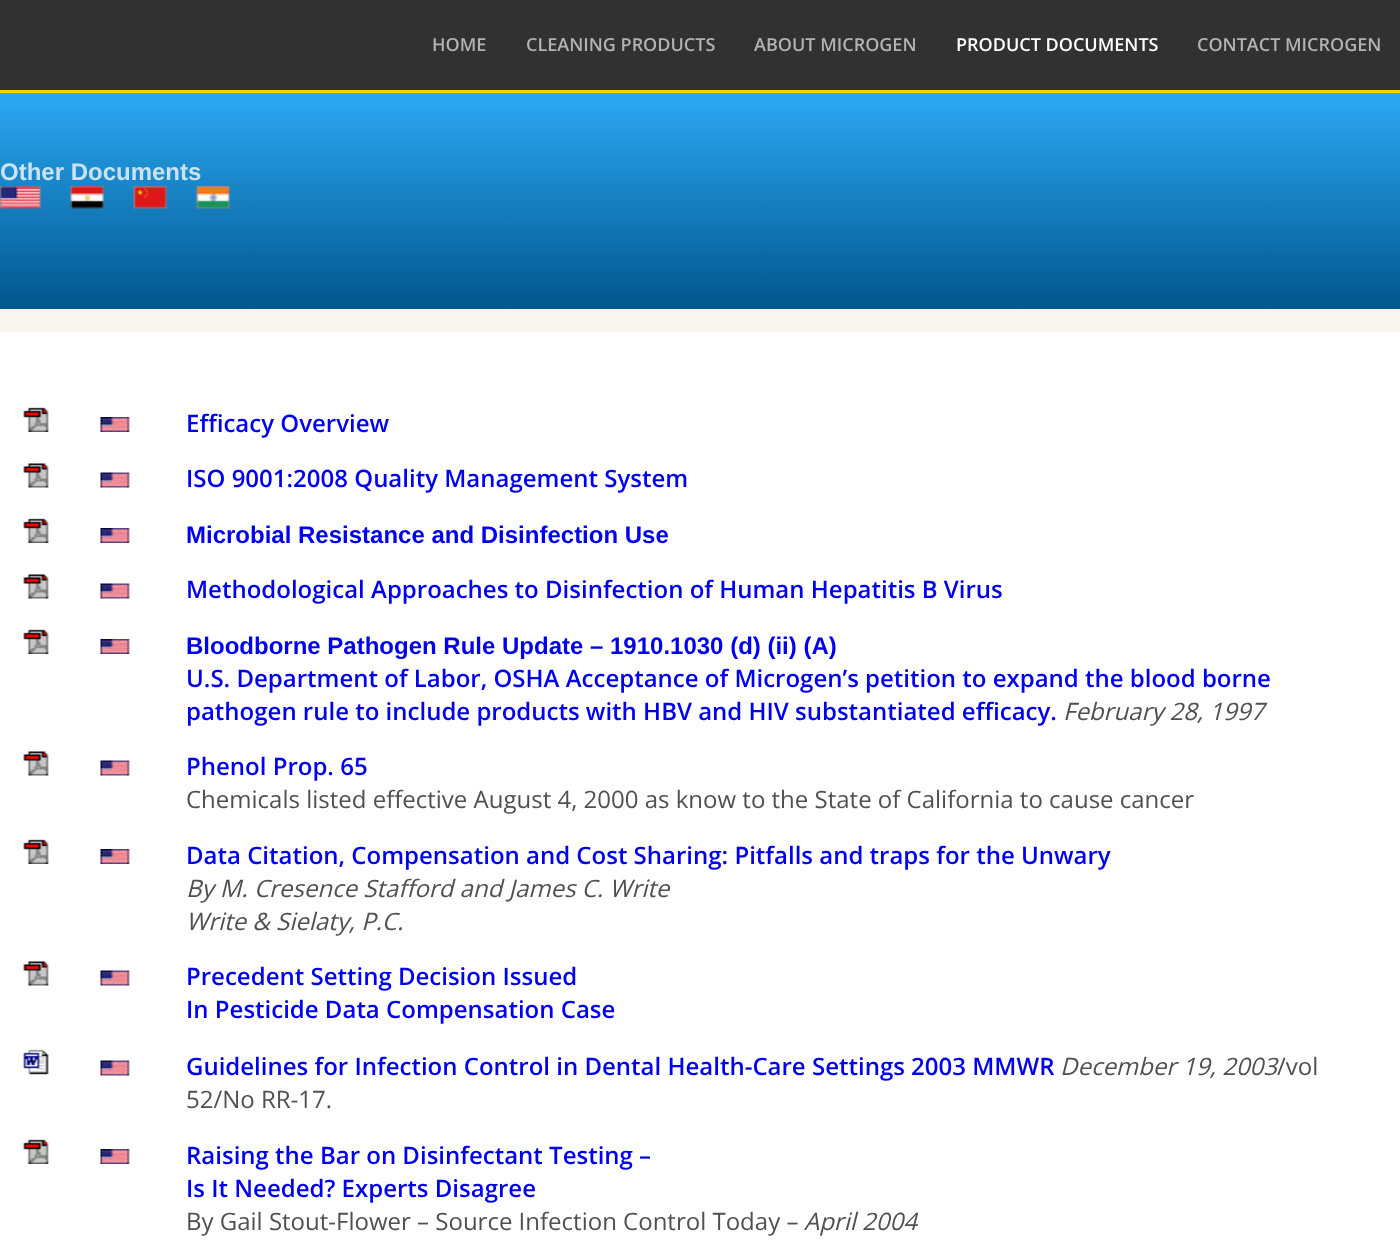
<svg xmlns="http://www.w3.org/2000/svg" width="1400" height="1243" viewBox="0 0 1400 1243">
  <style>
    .t1 { font: 600 18px Open Sans; fill: #b2b2b2; }
    .t2 { font: 600 18px Open Sans; fill: #fff; }
    .t3 { font: bold 24px Liberation Sans; fill: #c9e3f3; }
    .t4 { font: 600 24px Open Sans; fill: #00e; }
    .t5 { font: bold 24px Liberation Sans; fill: #00e; }
    .t6 { font: italic 24px Open Sans; fill: #505050; }
    .t7 { font: 24px Open Sans; fill: #505050; }
  </style>
  <defs>
    <linearGradient id="g1" gradientUnits="userSpaceOnUse" x1="701" y1="82" x2="701" y2="309"><stop offset="0" stop-color="#2eadfa"/><stop offset="1" stop-color="#01568c"/></linearGradient>
  </defs>
  <rect width="100%" height="100%" fill="#fff"/>
  <rect x="0" y="0" width="1400" height="90" fill="#313131"/>
  <rect x="0" y="90" width="1400" height="3" fill="#ffd400"/>
  <text x="432" y="51" class="t1">HOME</text>
  <text x="526" y="51" class="t1">CLEANING PRODUCTS</text>
  <text x="754" y="51" class="t1">ABOUT MICROGEN</text>
  <text x="956" y="51" class="t2">PRODUCT DOCUMENTS</text>
  <text x="1197" y="51" class="t1">CONTACT MICROGEN</text>
  <rect x="0" y="93" width="1400" height="216" fill="url(#g1)"/>
  <text x="0" y="180" class="t3">Other Documents</text>
  <image x="0" y="186" width="41" height="23" href="images/1.png"/>
  <image x="70" y="186" width="34" height="23" href="images/2.png"/>
  <image x="133" y="186" width="34" height="23" href="images/3.png"/>
  <image x="196" y="186" width="34" height="23" href="images/4.png"/>
  <rect x="0" y="309" width="1400" height="23" fill="#f9f6f1"/>
  <image x="23" y="407" width="26" height="25" href="images/5.png"/>
  <image x="100" y="417" width="30" height="15" href="images/6.png"/>
  <text x="186" y="432" class="t4">Efficacy Overview</text>
  <image x="23" y="463" width="26" height="25" href="images/7.png"/>
  <image x="100" y="472" width="30" height="16" href="images/8.png"/>
  <text x="186" y="487" class="t4">ISO 9001:2008 Quality Management System</text>
  <image x="23" y="518" width="26" height="25" href="images/5.png"/>
  <image x="100" y="528" width="30" height="15" href="images/6.png"/>
  <text x="186" y="543" class="t5">Microbial Resistance and Disinfection Use</text>
  <image x="23" y="574" width="26" height="25" href="images/7.png"/>
  <image x="100" y="583" width="30" height="16" href="images/8.png"/>
  <text x="186" y="598" class="t4">Methodological Approaches to Disinfection of Human Hepatitis B Virus</text>
  <image x="23" y="629" width="26" height="25" href="images/5.png"/>
  <image x="100" y="639" width="30" height="15" href="images/6.png"/>
  <text x="186" y="654" class="t5">Bloodborne Pathogen Rule Update – 1910.1030 (d) (ii) (A)</text>
  <text x="186" y="687" class="t4">U.S. Department of Labor, OSHA Acceptance of Microgen’s petition to expand the blood borne</text>
  <text x="186" y="720" class="t4">pathogen rule to include products with HBV and HIV substantiated efficacy.</text>
  <text x="1063" y="720" class="t6">February 28, 1997</text>
  <image x="23" y="751" width="26" height="25" href="images/7.png"/>
  <image x="100" y="760" width="30" height="16" href="images/8.png"/>
  <text x="186" y="775" class="t4">Phenol Prop. 65</text>
  <text x="186" y="808" class="t7">Chemicals listed effective August 4, 2000 as know to the State of California to cause cancer</text>
  <image x="23" y="839" width="26" height="25" href="images/5.png"/>
  <image x="100" y="849" width="30" height="15" href="images/6.png"/>
  <text x="186" y="864" class="t4">Data Citation, Compensation and Cost Sharing: Pitfalls and traps for the Unwary</text>
  <text x="186" y="897" class="t6">By M. Cresence Stafford and James C. Write</text>
  <text x="186" y="930" class="t6">Write &amp; Sielaty, P.C.</text>
  <image x="23" y="961" width="26" height="25" href="images/7.png"/>
  <image x="100" y="970" width="30" height="16" href="images/8.png"/>
  <text x="186" y="985" class="t4">Precedent Setting Decision Issued</text>
  <text x="186" y="1018" class="t4">In Pesticide Data Compensation Case</text>
  <image x="23" y="1049" width="26" height="26" href="images/9.png"/>
  <image x="100" y="1060" width="30" height="16" href="images/8.png"/>
  <text x="186" y="1075" class="t4">Guidelines for Infection Control in Dental Health-Care Settings 2003 MMWR</text>
  <text x="1060" y="1075" class="t6">December 19, 2003</text>
  <text x="1277" y="1075" class="t7">/vol</text>
  <text x="186" y="1108" class="t7">52/No RR-17.</text>
  <image x="23" y="1139" width="26" height="25" href="images/5.png"/>
  <image x="100" y="1149" width="30" height="15" href="images/6.png"/>
  <text x="186" y="1164" class="t4">Raising the Bar on Disinfectant Testing –</text>
  <text x="186" y="1197" class="t4">Is It Needed? Experts Disagree</text>
  <text x="186" y="1230" class="t7">By Gail Stout-Flower – Source Infection Control Today –</text>
  <text x="804" y="1230" class="t6">April 2004</text>
</svg>
